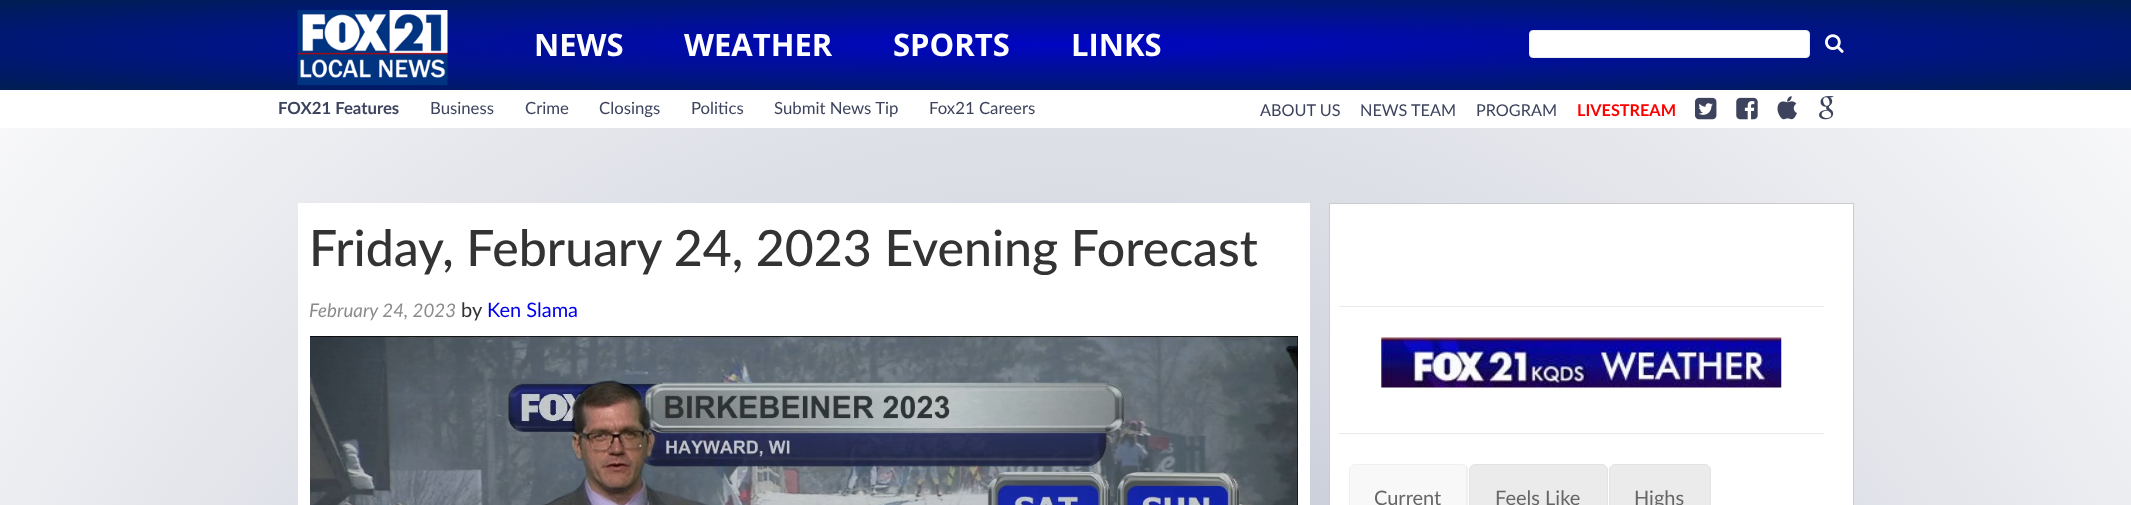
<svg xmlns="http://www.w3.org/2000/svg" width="2131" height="505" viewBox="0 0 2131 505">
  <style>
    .t1 { font: bold 31px Open Sans; fill: #fff; }
    .t2 { font: bold 16.75px Lato; fill: #3d435d; }
    .t3 { font: 16.75px Lato; fill: #3d435d; }
    .t4 { font: 16.25px Lato; fill: #3d435d; }
    .t5 { font: bold 16.25px Lato; fill: #f00; }
    .t6 { font: 500 50px Lato; fill: #333; }
    .t7 { font: italic 18.75px Lato; fill: #8b8b8b; }
    .t8 { font: 20px Lato; fill: #333; }
    .t9 { font: 20px Lato; fill: #00e; }
    .t10 { font: 20px Lato; fill: #666; }
  </style>
  <defs>
    <radialGradient id="g1" gradientUnits="userSpaceOnUse" cx="0" cy="0" r="1" gradientTransform="matrix(1507 0 0 1594 1066 1127)"><stop offset="0" stop-color="#abb1c4"/><stop offset="1" stop-color="#fcfcfc"/></radialGradient>
    <radialGradient id="g2" gradientUnits="userSpaceOnUse" cx="0" cy="0" r="1" gradientTransform="matrix(1507 0 0 64 1066 45)"><stop offset="0" stop-color="#0005c3"/><stop offset="1" stop-color="#001f52"/></radialGradient>
  </defs>
  <rect width="100%" height="100%" fill="#fff"/>
  <rect x="0" y="128" width="2131" height="377" fill="url(#g1)"/>
  <rect x="0" y="0" width="2131" height="90" fill="url(#g2)"/>
  <image x="297" y="10" width="151" height="75" href="images/1.png"/>
  <text x="534" y="56" class="t1">NEWS</text>
  <text x="684" y="56" class="t1">WEATHER</text>
  <text x="893" y="56" class="t1">SPORTS</text>
  <text x="1071" y="56" class="t1">LINKS</text>
  <rect x="1529.5" y="30.5" width="280" height="27" rx="3.5" fill="#fff" stroke="#eee"/>
  <image x="1825" y="34" width="19" height="19" href="images/2.png"/>
  <text x="278" y="114" class="t2">FOX21 Features</text>
  <text x="430" y="114" class="t3">Business</text>
  <text x="525" y="114" class="t3">Crime</text>
  <text x="599" y="114" class="t3">Closings</text>
  <text x="691" y="114" class="t3">Politics</text>
  <text x="774" y="114" class="t3">Submit News Tip</text>
  <text x="929" y="114" class="t3">Fox21 Careers</text>
  <text x="1260" y="116" class="t4">ABOUT US</text>
  <text x="1360" y="116" class="t4">NEWS TEAM</text>
  <text x="1476" y="116" class="t4">PROGRAM</text>
  <text x="1577" y="116" class="t5">LIVESTREAM</text>
  <image x="1695" y="97" width="22" height="23" href="images/3.png"/>
  <image x="1736" y="97" width="22" height="23" href="images/4.png"/>
  <image x="1777" y="96" width="20" height="24" href="images/5.png"/>
  <image x="1819" y="96" width="15" height="24" href="images/6.png"/>
  <rect x="298" y="203" width="1012" height="302" fill="#fff"/>
  <text x="309" y="266" class="t6">Friday, February 24, 2023 Evening Forecast</text>
  <text x="309" y="317" class="t7">February 24, 2023</text>
  <text x="461" y="317" class="t8">by</text>
  <text x="487" y="317" class="t9">Ken Slama</text>
  <rect x="310" y="336" width="988" height="169" fill="#000"/>
  <image x="310" y="336" width="988" height="169" href="images/7.png"/>
  <rect x="1329.5" y="203.5" width="524" height="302" fill="#fff" stroke="#ccc"/>
  <rect x="1339" y="306" width="485" height="1" fill="#ebebeb"/>
  <image x="1381" y="337" width="401" height="51" href="images/8.png"/>
  <rect x="1339" y="433" width="485" height="1" fill="#ebebeb"/>
  <path d="M1355 464H1462C1465.5 464 1468 466.5 1468 470V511H1349V470C1349 466.5 1351.5 464 1355 464Z" fill="#f8f8f8"/>
  <path d="M1355 464C1354 464 1352 465 1351 466C1352 466 1354 465 1355 465H1461C1463 465 1464 466 1465 467L1466 466C1464 465 1463 464 1461 464Z" fill="#f0f0f0"/>
  <path d="M1466 466L1468 468V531L1466 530V470C1466 469 1466 467 1465 467Z" fill="#f0f0f0"/>
  <path d="M1351 466C1350 467 1349 468 1349 470V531L1350 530V470C1350 468 1350 467 1351 466Z" fill="#f0f0f0"/>
  <text x="1374" y="505" class="t10">Current</text>
  <path d="M1475 464.5H1602C1605 464.5 1607.5 467 1607.5 470V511.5H1469.5V470C1469.5 467 1472 464.5 1475 464.5Z" fill="#ebebeb" stroke="#e3e3e3"/>
  <text x="1495" y="505" class="t10">Feels Like</text>
  <path d="M1615 464.5H1705C1708 464.5 1710.5 467 1710.5 470V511.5H1609.5V470C1609.5 467 1612 464.5 1615 464.5Z" fill="#ebebeb" stroke="#e3e3e3"/>
  <text x="1634" y="505" class="t10">Highs</text>
</svg>
